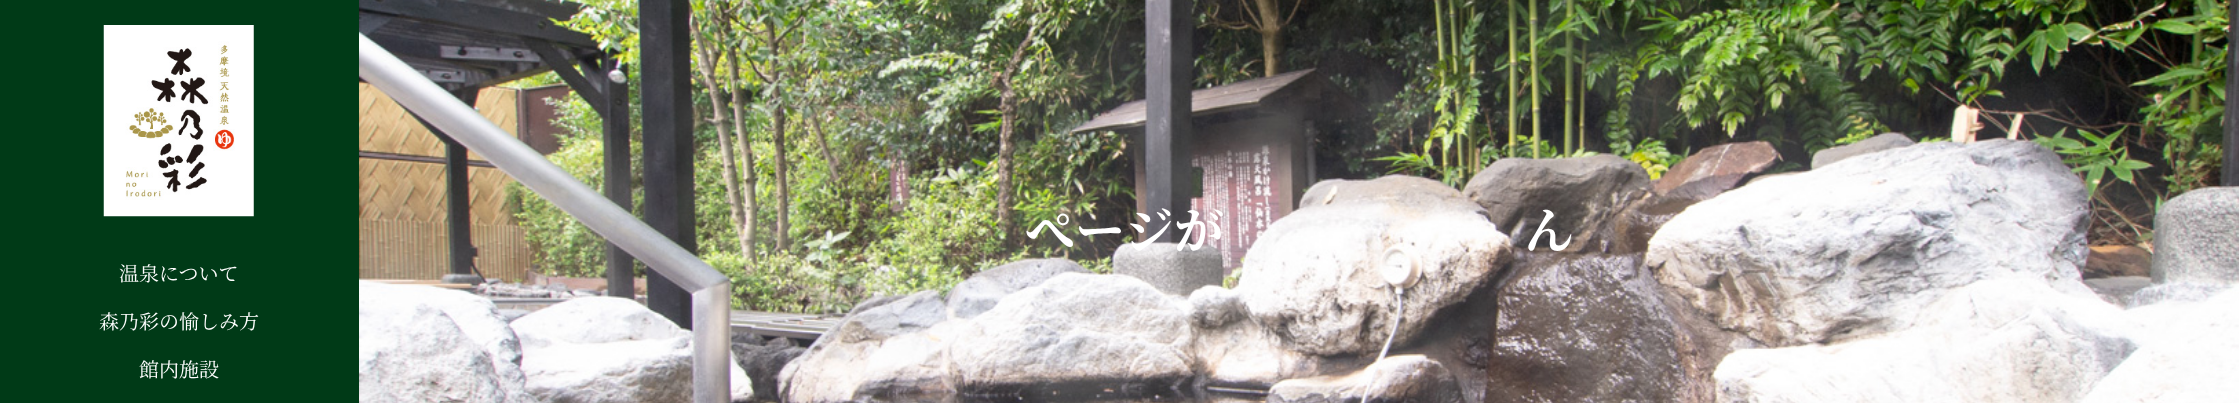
<svg xmlns="http://www.w3.org/2000/svg" width="2239" height="403" viewBox="0 0 2239 403">
  <style>
    .t1 { font: bold 50px Noto Serif JP; fill: #fff; }
    .t2 { font: 20px Noto Serif JP; fill: #fff; }
  </style>
  <rect width="100%" height="100%" fill="#fff"/>
  <image x="359" y="0" width="1880" height="403" href="images/1.png"/>
  <text x="1025" y="249" class="t1">ぺージが</text>
  <text x="1524" y="249" class="t1">ん</text>
  <rect x="0" y="0" width="359" height="403" fill="#003a17"/>
  <image x="103" y="25" width="151" height="192" href="images/2.png"/>
  <text x="119" y="281" class="t2">温泉について</text>
  <text x="99" y="329" class="t2">森乃彩の愉しみ方</text>
  <text x="139" y="377" class="t2">館内施設</text>
</svg>
